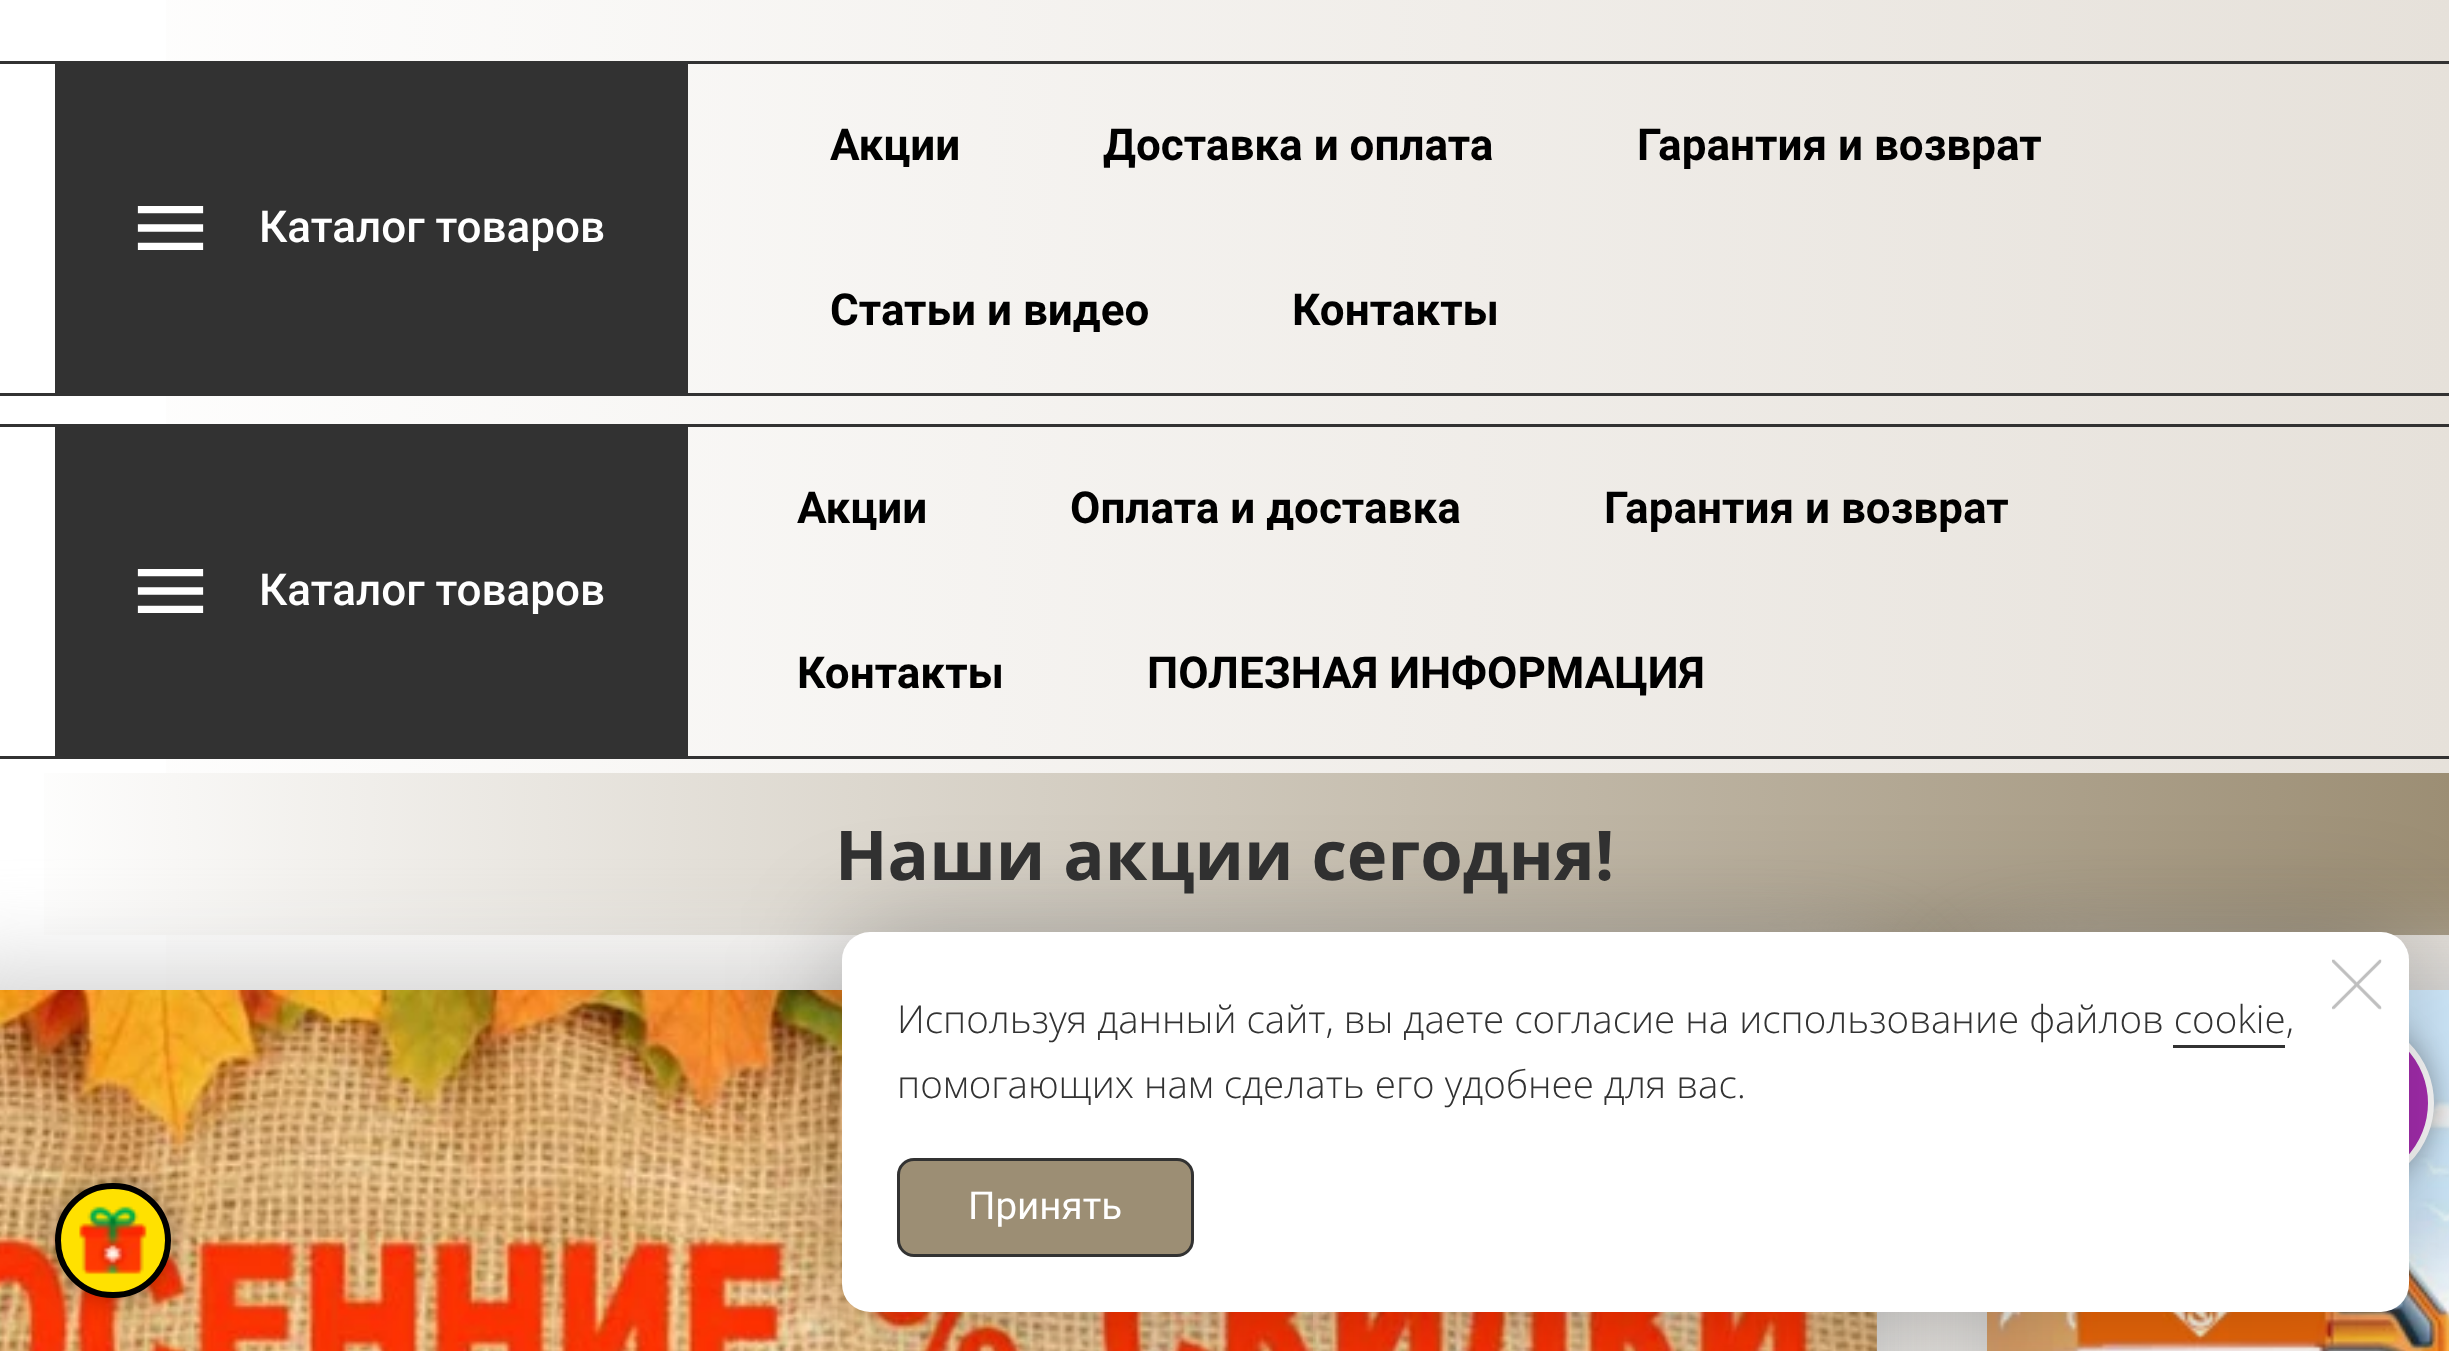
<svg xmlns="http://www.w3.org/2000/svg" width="2449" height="1351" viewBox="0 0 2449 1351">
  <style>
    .t1 { font: 500 44px Roboto; fill: #fff; }
    .t2 { font: bold 44px Roboto; fill: #000; }
    .t3 { font: bold 68.75px Open Sans; fill: #323232; }
    .t4 { font: 300 38.5px Open Sans; fill: #323232; }
    .t5 { font: 38.5px Roboto; fill: #fff; }
  </style>
  <defs>
    <linearGradient id="g1" gradientUnits="userSpaceOnUse" x1="0" y1="61" x2="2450" y2="60"><stop offset="0" stop-color="#fff"/><stop offset="1" stop-color="#e6e1da"/></linearGradient>
    <linearGradient id="g2" gradientUnits="userSpaceOnUse" x1="0" y1="591" x2="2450" y2="591"><stop offset="0" stop-color="#fff"/><stop offset="1" stop-color="#e6e1da"/></linearGradient>
    <linearGradient id="g3" gradientUnits="userSpaceOnUse" x1="0" y1="1238" x2="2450" y2="1238"><stop offset="0" stop-color="#fff"/><stop offset="1" stop-color="#e6e1da"/></linearGradient>
    <linearGradient id="g4" gradientUnits="userSpaceOnUse" x1="0" y1="854" x2="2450" y2="854"><stop offset="0" stop-color="#fff"/><stop offset="1" stop-color="#9c8e74"/></linearGradient>
  </defs>
  <rect width="100%" height="100%" fill="#fff"/>
  <rect x="166" y="0" width="2283" height="410" fill="url(#g1)"/>
  <rect x="0" y="61" width="2449" height="3" fill="#323232"/>
  <rect x="0" y="393" width="2449" height="3" fill="#323232"/>
  <rect x="55" y="64" width="633" height="329" fill="#323232"/>
  <image x="137" y="206" width="67" height="44" href="images/1.png"/>
  <text x="259" y="242" class="t1">Каталог товаров</text>
  <text x="830" y="160" class="t2">Акции</text>
  <text x="1103" y="160" class="t2">Доставка и оплата</text>
  <text x="1637" y="160" class="t2">Гарантия и возврат</text>
  <text x="830" y="325" class="t2">Статьи и видео</text>
  <text x="1292" y="325" class="t2">Контакты</text>
  <rect x="166" y="410" width="2283" height="363" fill="url(#g2)"/>
  <rect x="0" y="424" width="2449" height="3" fill="#323232"/>
  <rect x="0" y="756" width="2449" height="3" fill="#323232"/>
  <rect x="55" y="427" width="633" height="329" fill="#323232"/>
  <image x="137" y="569" width="67" height="44" href="images/1.png"/>
  <text x="259" y="605" class="t1">Каталог товаров</text>
  <text x="797" y="523" class="t2">Акции</text>
  <text x="1070" y="523" class="t2">Оплата и доставка</text>
  <text x="1604" y="523" class="t2">Гарантия и возврат</text>
  <text x="797" y="688" class="t2">Контакты</text>
  <text x="1147" y="688" class="t2">ПОЛЕЗНАЯ ИНФОРМАЦИЯ</text>
  <rect x="166" y="935" width="2283" height="416" fill="url(#g3)"/>
  <rect x="44" y="773" width="2405" height="162" fill="url(#g4)"/>
  <rect x="-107" y="974" width="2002" height="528" rx="72" fill="#d1d1d1" filter="blur(48px)"/>
  <image x="0" y="990" width="1877" height="361" href="images/2.png"/>
  <rect x="1972" y="974" width="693" height="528" rx="72" fill="#d1d1d1" filter="blur(48px)"/>
  <image x="1987" y="990" width="462" height="361" href="images/3.png"/>
  <text x="835" y="880" class="t3">Наши акции сегодня!</text>
  <rect x="55" y="1183" width="116" height="115" rx="57.5" fill="#0000004d" filter="blur(14px)"/>
  <rect x="58" y="1186" width="110" height="109" rx="54.5" fill="#ffe100" stroke="#000" stroke-width="6"/>
  <image x="79" y="1206" width="68" height="69" href="images/4.png"/>
  <rect x="2263" y="1018" width="171" height="170" rx="85" fill="#0000004d" filter="blur(14px)"/>
  <rect x="2266" y="1021" width="165" height="164" rx="82" fill="#a92eb3" stroke="#fff" stroke-width="6"/>
  <rect x="842" y="932" width="1567" height="380" rx="28" fill="#00000040" filter="blur(55px)"/>
  <rect x="842" y="932" width="1567" height="380" rx="28" fill="#fff"/>
  <image x="2332" y="959" width="50" height="51" href="images/5.png"/>
  <text x="897" y="1033" class="t4">Используя данный сайт, вы даете согласие на использование файлов cookie,</text>
  <rect x="2173" y="1045" width="112" height="3" fill="#323232"/>
  <text x="897" y="1098" class="t4">помогающих нам сделать его удобнее для вас.</text>
  <rect x="898.5" y="1159.5" width="294" height="96" rx="15.5" fill="#9c8e74" stroke="#323232" stroke-width="3"/>
  <text x="968" y="1219" class="t5">Принять</text>
</svg>
